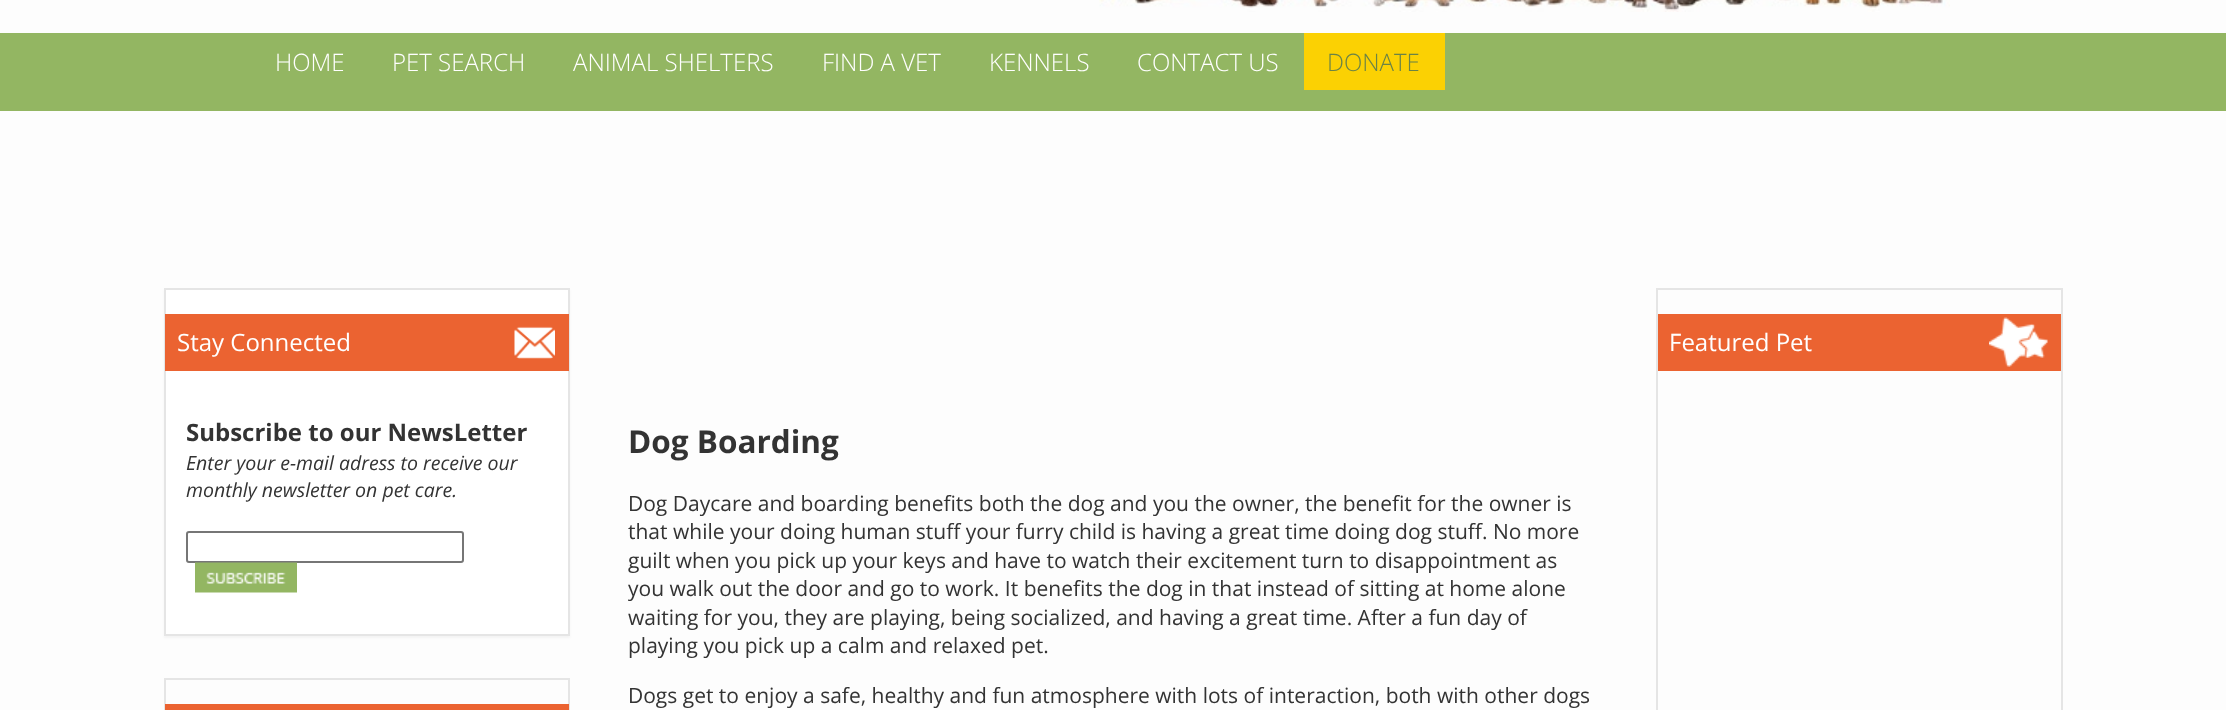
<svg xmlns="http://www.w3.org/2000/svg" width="2226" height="710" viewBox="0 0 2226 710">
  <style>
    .t1 { font: 300 24px Open Sans; fill: #fff; }
    .t2 { font: 300 24px Open Sans; fill: #6a8347; }
    .t3 { font: 24px Open Sans; fill: #fff; }
    .t4 { font: bold 24px Open Sans; fill: #333; }
    .t5 { font: italic 19.5px Open Sans; fill: #333; }
    .t6 { font: bold 31.5px Open Sans; fill: #333; }
    .t7 { font: 21px Open Sans; fill: #333; }
  </style>
  <rect width="100%" height="100%" fill="#fdfdfd"/>
  <image x="1099" y="0" width="851" height="12" href="images/1.png"/>
  <rect x="0" y="33" width="2226" height="78" fill="#93b662"/>
  <text x="275" y="71" class="t1">HOME</text>
  <text x="392" y="71" class="t1">PET SEARCH</text>
  <text x="573" y="71" class="t1">ANIMAL SHELTERS</text>
  <text x="822" y="71" class="t1">FIND A VET</text>
  <text x="989" y="71" class="t1">KENNELS</text>
  <text x="1137" y="71" class="t1">CONTACT US</text>
  <rect x="1304" y="33" width="141" height="57" fill="#fbd103"/>
  <text x="1327" y="71" class="t2">DONATE</text>
  <rect x="164" y="290" width="406" height="348" fill="#0000000a" filter="blur(1px)"/>
  <rect x="165" y="289" width="404" height="346" fill="#fff" stroke="#e5e5e5" stroke-width="2"/>
  <rect x="165" y="314" width="404" height="57" fill="#eb6331"/>
  <image x="514" y="326" width="41" height="33" href="images/2.png"/>
  <text x="177" y="351" class="t3">Stay Connected</text>
  <text x="186" y="441" class="t4">Subscribe to our NewsLetter</text>
  <text x="186" y="470" class="t5">Enter your e-mail adress to receive our</text>
  <text x="186" y="497" class="t5">monthly newsletter on pet care.</text>
  <rect x="187" y="532" width="276" height="30" rx="2" fill="none" stroke="#767676" stroke-width="2"/>
  <image x="195" y="562" width="102" height="31" href="images/3.png"/>
  <rect x="165" y="679" width="404" height="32" fill="none" stroke="#e5e5e5" stroke-width="2"/>
  <rect x="165" y="704" width="404" height="6" fill="#eb6331"/>
  <rect x="1657" y="289" width="405" height="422" fill="none" stroke="#e5e5e5" stroke-width="2"/>
  <rect x="1658" y="314" width="403" height="57" fill="#eb6331"/>
  <image x="1989" y="317" width="59" height="50" href="images/4.png"/>
  <text x="1669" y="351" class="t3">Featured Pet</text>
  <text x="628" y="453" class="t6">Dog Boarding</text>
  <text x="628" y="511" class="t7">Dog Daycare and boarding benefits both the dog and you the owner, the benefit for the owner is</text>
  <text x="628" y="539" class="t7">that while your doing human stuff your furry child is having a great time doing dog stuff. No more</text>
  <text x="628" y="568" class="t7">guilt when you pick up your keys and have to watch their excitement turn to disappointment as</text>
  <text x="628" y="596" class="t7">you walk out the door and go to work. It benefits the dog in that instead of sitting at home alone</text>
  <text x="628" y="625" class="t7">waiting for you, they are playing, being socialized, and having a great time. After a fun day of</text>
  <text x="628" y="653" class="t7">playing you pick up a calm and relaxed pet.</text>
  <text x="628" y="703" class="t7">Dogs get to enjoy a safe, healthy and fun atmosphere with lots of interaction, both with other dogs</text>
</svg>
